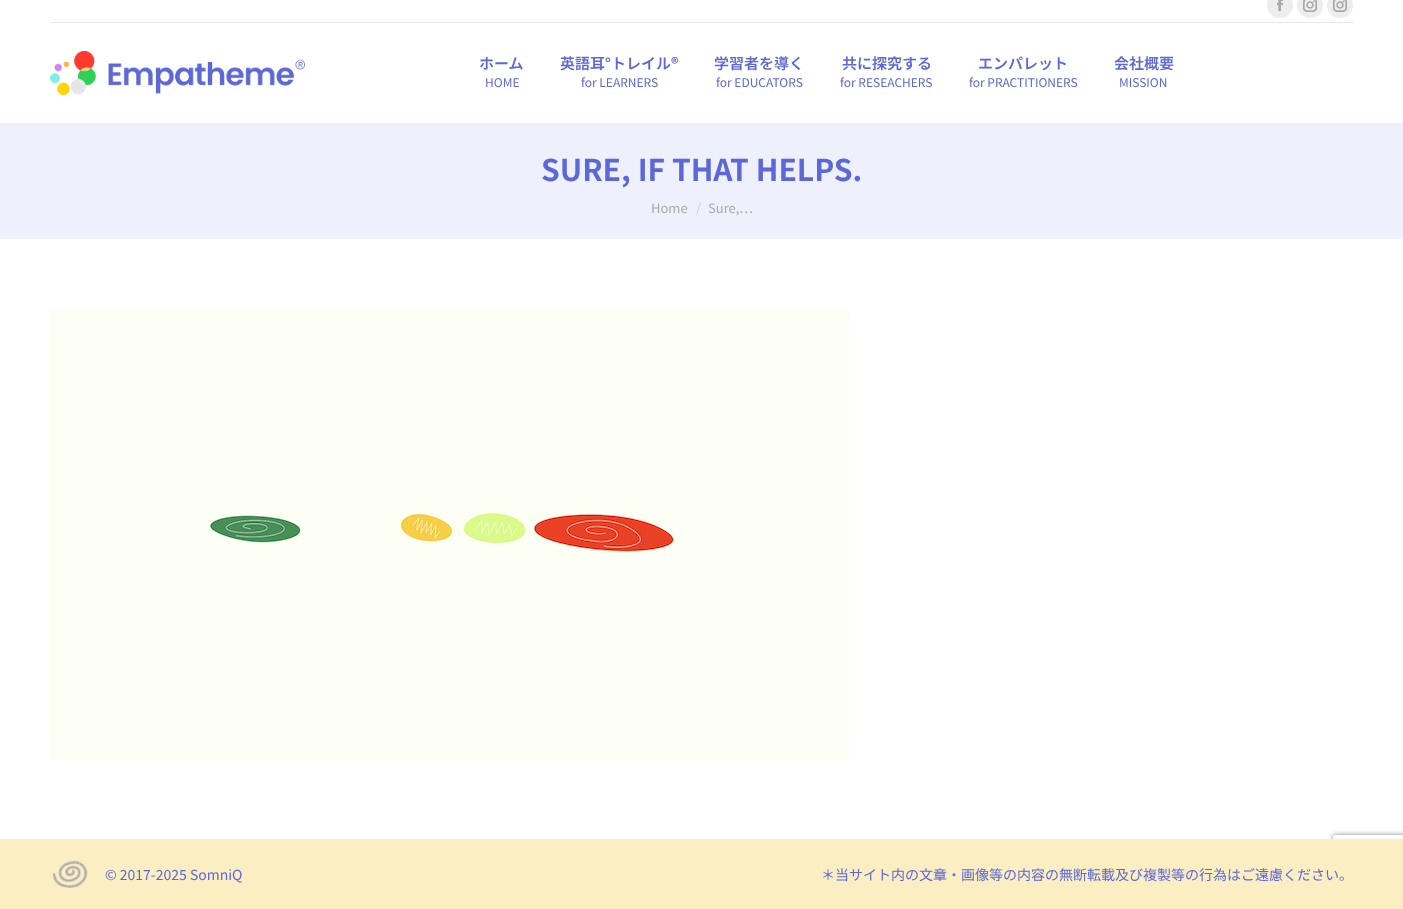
<svg xmlns="http://www.w3.org/2000/svg" width="1403" height="909" viewBox="0 0 1403 909">
  <style>
    .t1 { font: 600 15px Noto Sans JP; fill: #5c68d9; }
    .t2 { font: 12px Noto Sans JP; fill: #5c68d9; }
    .t3 { font: bold 30px Noto Sans JP; fill: #5c68d9; }
    .t4 { font: 13px Noto Sans JP; fill: #aaa; }
    .t5 { font: 13px Noto Sans JP; fill: #cccdd3; }
    .t6 { font: 14px Noto Sans JP; fill: #5c68d9; }
  </style>
  <defs>
    <clipPath id="clip1"><path d="M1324 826H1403V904H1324ZM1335 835H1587C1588 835 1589 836 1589 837V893C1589 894 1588 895 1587 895H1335C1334 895 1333 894 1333 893V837C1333 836 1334 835 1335 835Z" clip-rule="evenodd"/></clipPath>
  </defs>
  <rect width="100%" height="100%" fill="#fff"/>
  <circle cx="1280" cy="5" r="13" fill="#ededee"/>
  <image x="1277" y="0" width="6" height="11" href="images/1.png"/>
  <circle cx="1310" cy="5" r="13" fill="#ededee"/>
  <image x="1303" y="0" width="14" height="12" href="images/2.png"/>
  <circle cx="1340" cy="5" r="13" fill="#ededee"/>
  <image x="1333" y="0" width="14" height="12" href="images/2.png"/>
  <rect x="50" y="22" width="1303" height="1" fill="#e7e7e7"/>
  <image x="50" y="51" width="255" height="44" href="images/3.png"/>
  <text x="479" y="69" class="t1">ホーム</text>
  <text x="485" y="87" class="t2">HOME</text>
  <text x="560" y="69" class="t1">英語耳°トレイル®</text>
  <text x="581" y="87" class="t2">for LEARNERS</text>
  <text x="714" y="69" class="t1">学習者を導く</text>
  <text x="716" y="87" class="t2">for EDUCATORS</text>
  <text x="842" y="69" class="t1">共に探究する</text>
  <text x="840" y="87" class="t2">for RESEACHERS</text>
  <text x="978" y="69" class="t1">エンパレット</text>
  <text x="969" y="87" class="t2">for PRACTITIONERS</text>
  <text x="1114" y="69" class="t1">会社概要</text>
  <text x="1119" y="87" class="t2">MISSION</text>
  <rect x="0" y="123" width="1403" height="116" fill="#eef0fb"/>
  <text x="541" y="181" class="t3">SURE, IF THAT HELPS.</text>
  <text x="651" y="213" class="t4">Home</text>
  <text x="696" y="213" class="t5">/</text>
  <text x="708" y="213" class="t4">Sure,…</text>
  <image x="50" y="309" width="800" height="450" href="images/4.png"/>
  <g clip-path="url(#clip1)">
    <rect x="1333" y="835" width="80" height="60" rx="2" fill="#808080" filter="blur(2.5px)"/>
  </g>
  <rect x="0" y="839" width="1403" height="70" fill="#fbeec3"/>
  <image x="53" y="860" width="35" height="28" href="images/5.png"/>
  <text x="105" y="880" class="t6">© 2017-2025 SomniQ</text>
  <text x="821" y="880" class="t6">＊当サイト内の文章・画像等の内容の無断転載及び複製等の行為はご遠慮ください。</text>
</svg>
